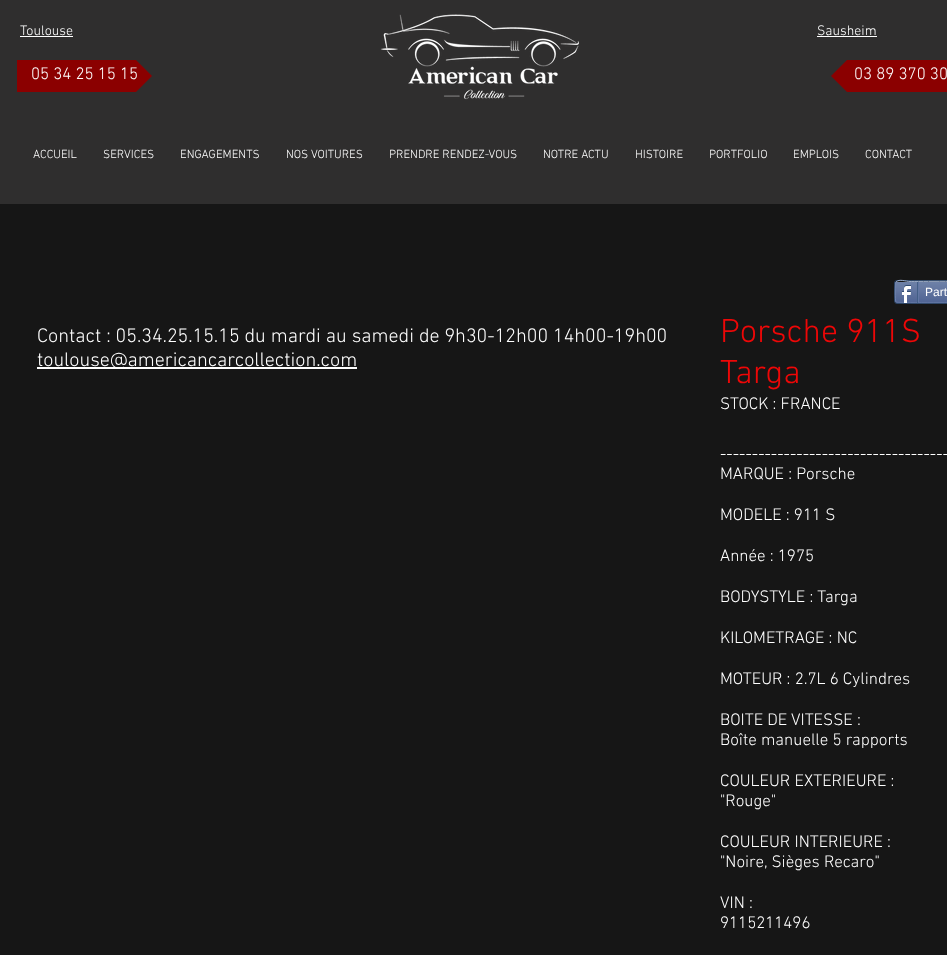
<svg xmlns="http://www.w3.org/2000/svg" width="947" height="955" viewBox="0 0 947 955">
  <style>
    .t1 { font: 300 14px 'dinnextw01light'; fill: #fff; }
    .t2 { font: 300 17px 'dinnextw01light'; fill: #fff; }
    .t3 { font: 300 12px 'dinnextw01light'; fill: #fff; }
    .t4 { font: 12px Liberation Sans; fill: #fff; }
    .t5 { font: 300 20px 'dinnextw01light'; fill: #fff; }
    .t6 { font: 300 34px 'dinnextw01light'; fill: #ed0707; }
  </style>
  <defs>
    <clipPath id="clip1"><rect x="17" y="60" width="135" height="32"/></clipPath>
    <clipPath id="clip2"><rect x="831" y="60" width="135" height="32"/></clipPath>
  </defs>
  <rect width="100%" height="100%" fill="#161616"/>
  <rect x="0" y="0" width="947" height="204" fill="#2f2e2e"/>
  <text x="20" y="35" class="t1">Toulouse</text>
  <rect x="20" y="36" width="53" height="1" fill="#fff"/>
  <image x="380" y="14" width="199" height="86" href="images/1.png"/>
  <text x="817" y="35" class="t1">Sausheim</text>
  <rect x="817" y="36" width="60" height="1" fill="#fff"/>
  <rect x="17" y="60" width="85" height="32" fill="#8b0000"/>
  <g clip-path="url(#clip1)">
    <path d="M152 76H102V26ZM102 76H152L102 126Z" fill="#8b0000"/>
  </g>
  <text x="31" y="79" class="t2">05 34 25 15 15</text>
  <g clip-path="url(#clip2)">
    <path d="M881 76H831L881 26ZM831 76H881V126Z" fill="#8b0000"/>
  </g>
  <rect x="881" y="60" width="66" height="32" fill="#8b0000"/>
  <text x="854" y="79" class="t2">03 89 370 30</text>
  <text x="33" y="158" class="t3">ACCUEIL</text>
  <text x="103" y="158" class="t3">SERVICES</text>
  <text x="180" y="158" class="t3">ENGAGEMENTS</text>
  <text x="286" y="158" class="t3">NOS VOITURES</text>
  <text x="389" y="158" class="t3">PRENDRE RENDEZ-VOUS</text>
  <text x="543" y="158" class="t3">NOTRE ACTU</text>
  <text x="635" y="158" class="t3">HISTOIRE</text>
  <text x="709" y="158" class="t3">PORTFOLIO</text>
  <text x="793" y="158" class="t3">EMPLOIS</text>
  <text x="865" y="158" class="t3">CONTACT</text>
  <rect x="894.5" y="280.5" width="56" height="23" rx="2.5" fill="none" stroke="#2d4565"/>
  <image x="895" y="282" width="52" height="21" href="images/2.png"/>
  <path d="M896 282C899.5 278.5 905.5 281.5 910 281.5C917 281.5 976 281 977 282" fill="none" stroke="#9aabc6"/>
  <path d="M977 302C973.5 305.5 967.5 302.5 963 302.5C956 302.5 897 303 896 302" fill="none" stroke="#6176a3"/>
  <path d="M896 302C895 301.5 895 282.5 896 282" fill="none" stroke="#6f83ad"/>
  <image x="901" y="285" width="10" height="18" href="images/3.png"/>
  <rect x="917" y="282" width="1" height="21" fill="#425e85"/>
  <text x="925" y="296" class="t4">Part</text>
  <rect x="918" y="282" width="1" height="20" fill="#6176a3"/>
  <text x="37" y="342" class="t5">Contact : 05.34.25.15.15 du mardi au samedi de 9h30-12h00 14h00-19h00</text>
  <rect x="37" y="367" width="320" height="2" fill="#fff"/>
  <text x="37" y="366" class="t5">toulouse@americancarcollection.com</text>
  <text x="720" y="342" class="t6">Porsche 911S</text>
  <text x="720" y="383" class="t6">Targa</text>
  <text x="720" y="409" class="t2">STOCK : FRANCE</text>
  <text x="720" y="459" class="t2">------------------------------------</text>
  <text x="720" y="479" class="t2">MARQUE : Porsche</text>
  <text x="720" y="520" class="t2">MODELE : 911 S</text>
  <text x="720" y="561" class="t2">Année : 1975</text>
  <text x="720" y="602" class="t2">BODYSTYLE : Targa</text>
  <text x="720" y="643" class="t2">KILOMETRAGE : NC</text>
  <text x="720" y="684" class="t2">MOTEUR : 2.7L 6 Cylindres</text>
  <text x="720" y="725" class="t2">BOITE DE VITESSE :</text>
  <text x="720" y="745" class="t2">Boîte manuelle 5 rapports</text>
  <text x="720" y="786" class="t2">COULEUR EXTERIEURE :</text>
  <text x="720" y="806" class="t2">"Rouge"</text>
  <text x="720" y="847" class="t2">COULEUR INTERIEURE :</text>
  <text x="720" y="867" class="t2">"Noire, Sièges Recaro"</text>
  <text x="720" y="908" class="t2">VIN :</text>
  <text x="720" y="928" class="t2">9115211496</text>
</svg>
